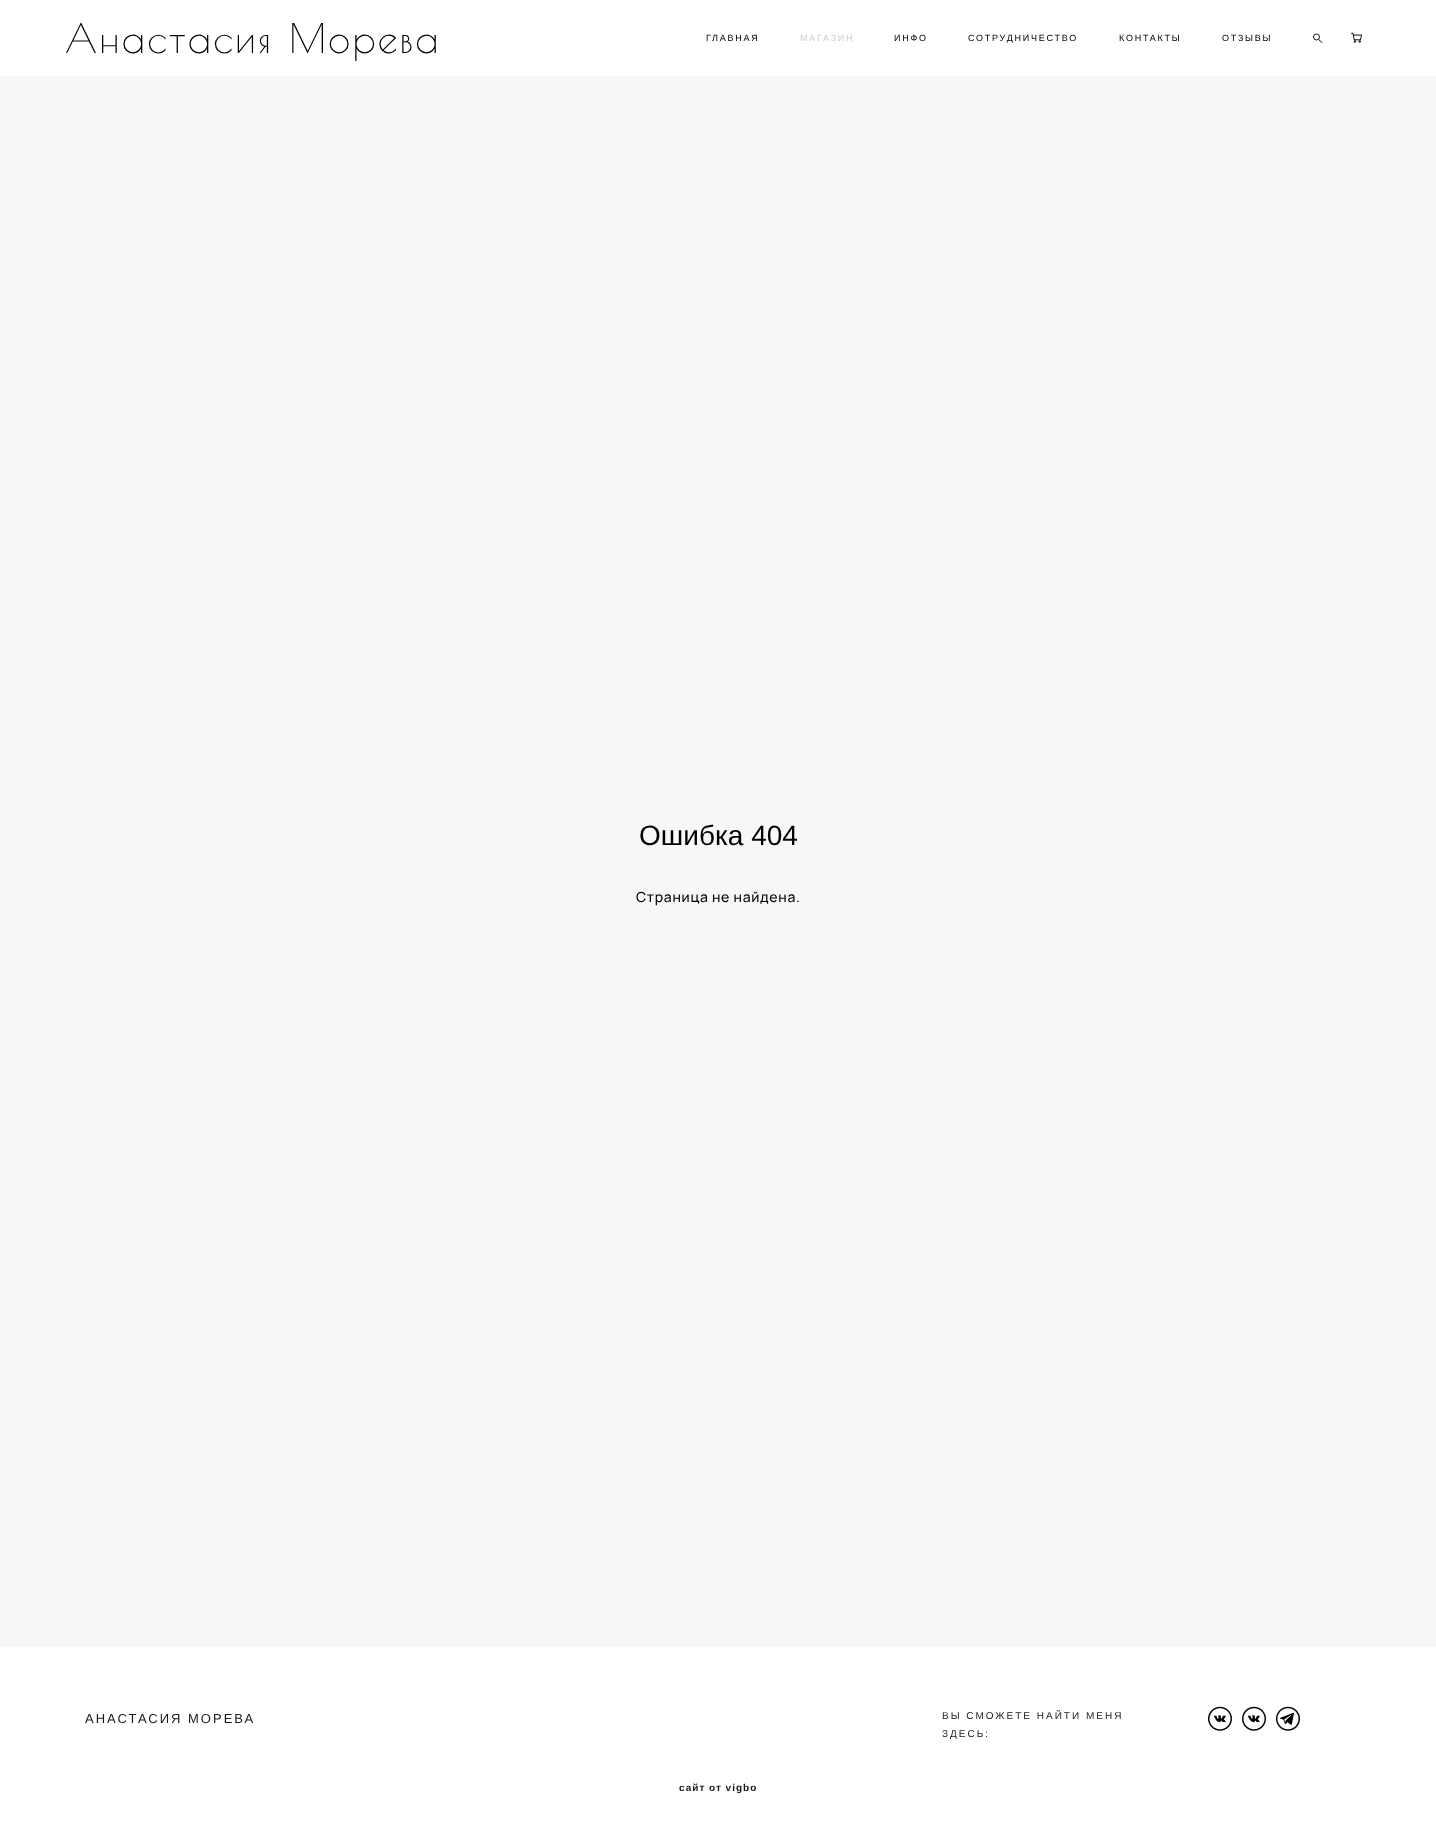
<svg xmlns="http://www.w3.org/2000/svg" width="1436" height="1835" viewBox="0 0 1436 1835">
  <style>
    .t1 { font: 40px Poiret One; letter-spacing: 2px; fill: #000; }
    .t2 { font: 9px Liberation Sans; letter-spacing: 1.75px; fill: #000; }
    .t3 { font: 9px Liberation Sans; letter-spacing: 1.75px; fill: #ccc; }
    .t4 { font: 28px Liberation Sans; fill: #000; }
    .t5 { font: 500 14px Manrope; letter-spacing: 0.7px; fill: #000; }
    .t6 { font: 13px Liberation Sans; letter-spacing: 2px; fill: #191919; }
    .t7 { font: 10px Liberation Sans; letter-spacing: 2px; fill: #191919; }
    .t8 { font: bold 10px Liberation Sans; letter-spacing: 1px; fill: #191919; }
  </style>
  <rect width="100%" height="100%" fill="#f7f7f7"/>
  <rect x="0" y="0" width="1436" height="76" fill="#fff"/>
  <text x="65" y="53" class="t1">Анастасия Морева</text>
  <text x="706" y="41" class="t2">ГЛАВНАЯ</text>
  <text x="800" y="41" class="t3">МАГАЗИН</text>
  <text x="894" y="41" class="t2">ИНФО</text>
  <text x="968" y="41" class="t2">СОТРУДНИЧЕСТВО</text>
  <text x="1119" y="41" class="t2">КОНТАКТЫ</text>
  <text x="1222" y="41" class="t2">ОТЗЫВЫ</text>
  <circle cx="1316.5" cy="37" r="3" fill="none" stroke="#000" stroke-width="0.9"/>
  <path d="M1318.5 39.5L1322 42.5" fill="none" stroke="#000" stroke-width="0.9" stroke-linecap="round" stroke-linejoin="round"/>
  <image x="1351" y="32" width="11" height="11" href="images/1.png"/>
  <text x="639" y="845" class="t4">Ошибка 404</text>
  <text x="636" y="902" class="t5">Страница не найдена.</text>
  <rect x="0" y="1647" width="1436" height="188" fill="#fff"/>
  <text x="85" y="1723" class="t6">АНАСТАСИЯ МОРЕВА</text>
  <text x="942" y="1719" class="t7">ВЫ СМОЖЕТЕ НАЙТИ МЕНЯ</text>
  <text x="942" y="1737" class="t7">ЗДЕСЬ:</text>
  <image x="1208" y="1706" width="24" height="25" href="images/2.png"/>
  <image x="1242" y="1706" width="24" height="25" href="images/2.png"/>
  <image x="1276" y="1706" width="24" height="25" href="images/3.png"/>
  <text x="679" y="1791" class="t8">сайт от vigbo</text>
</svg>
